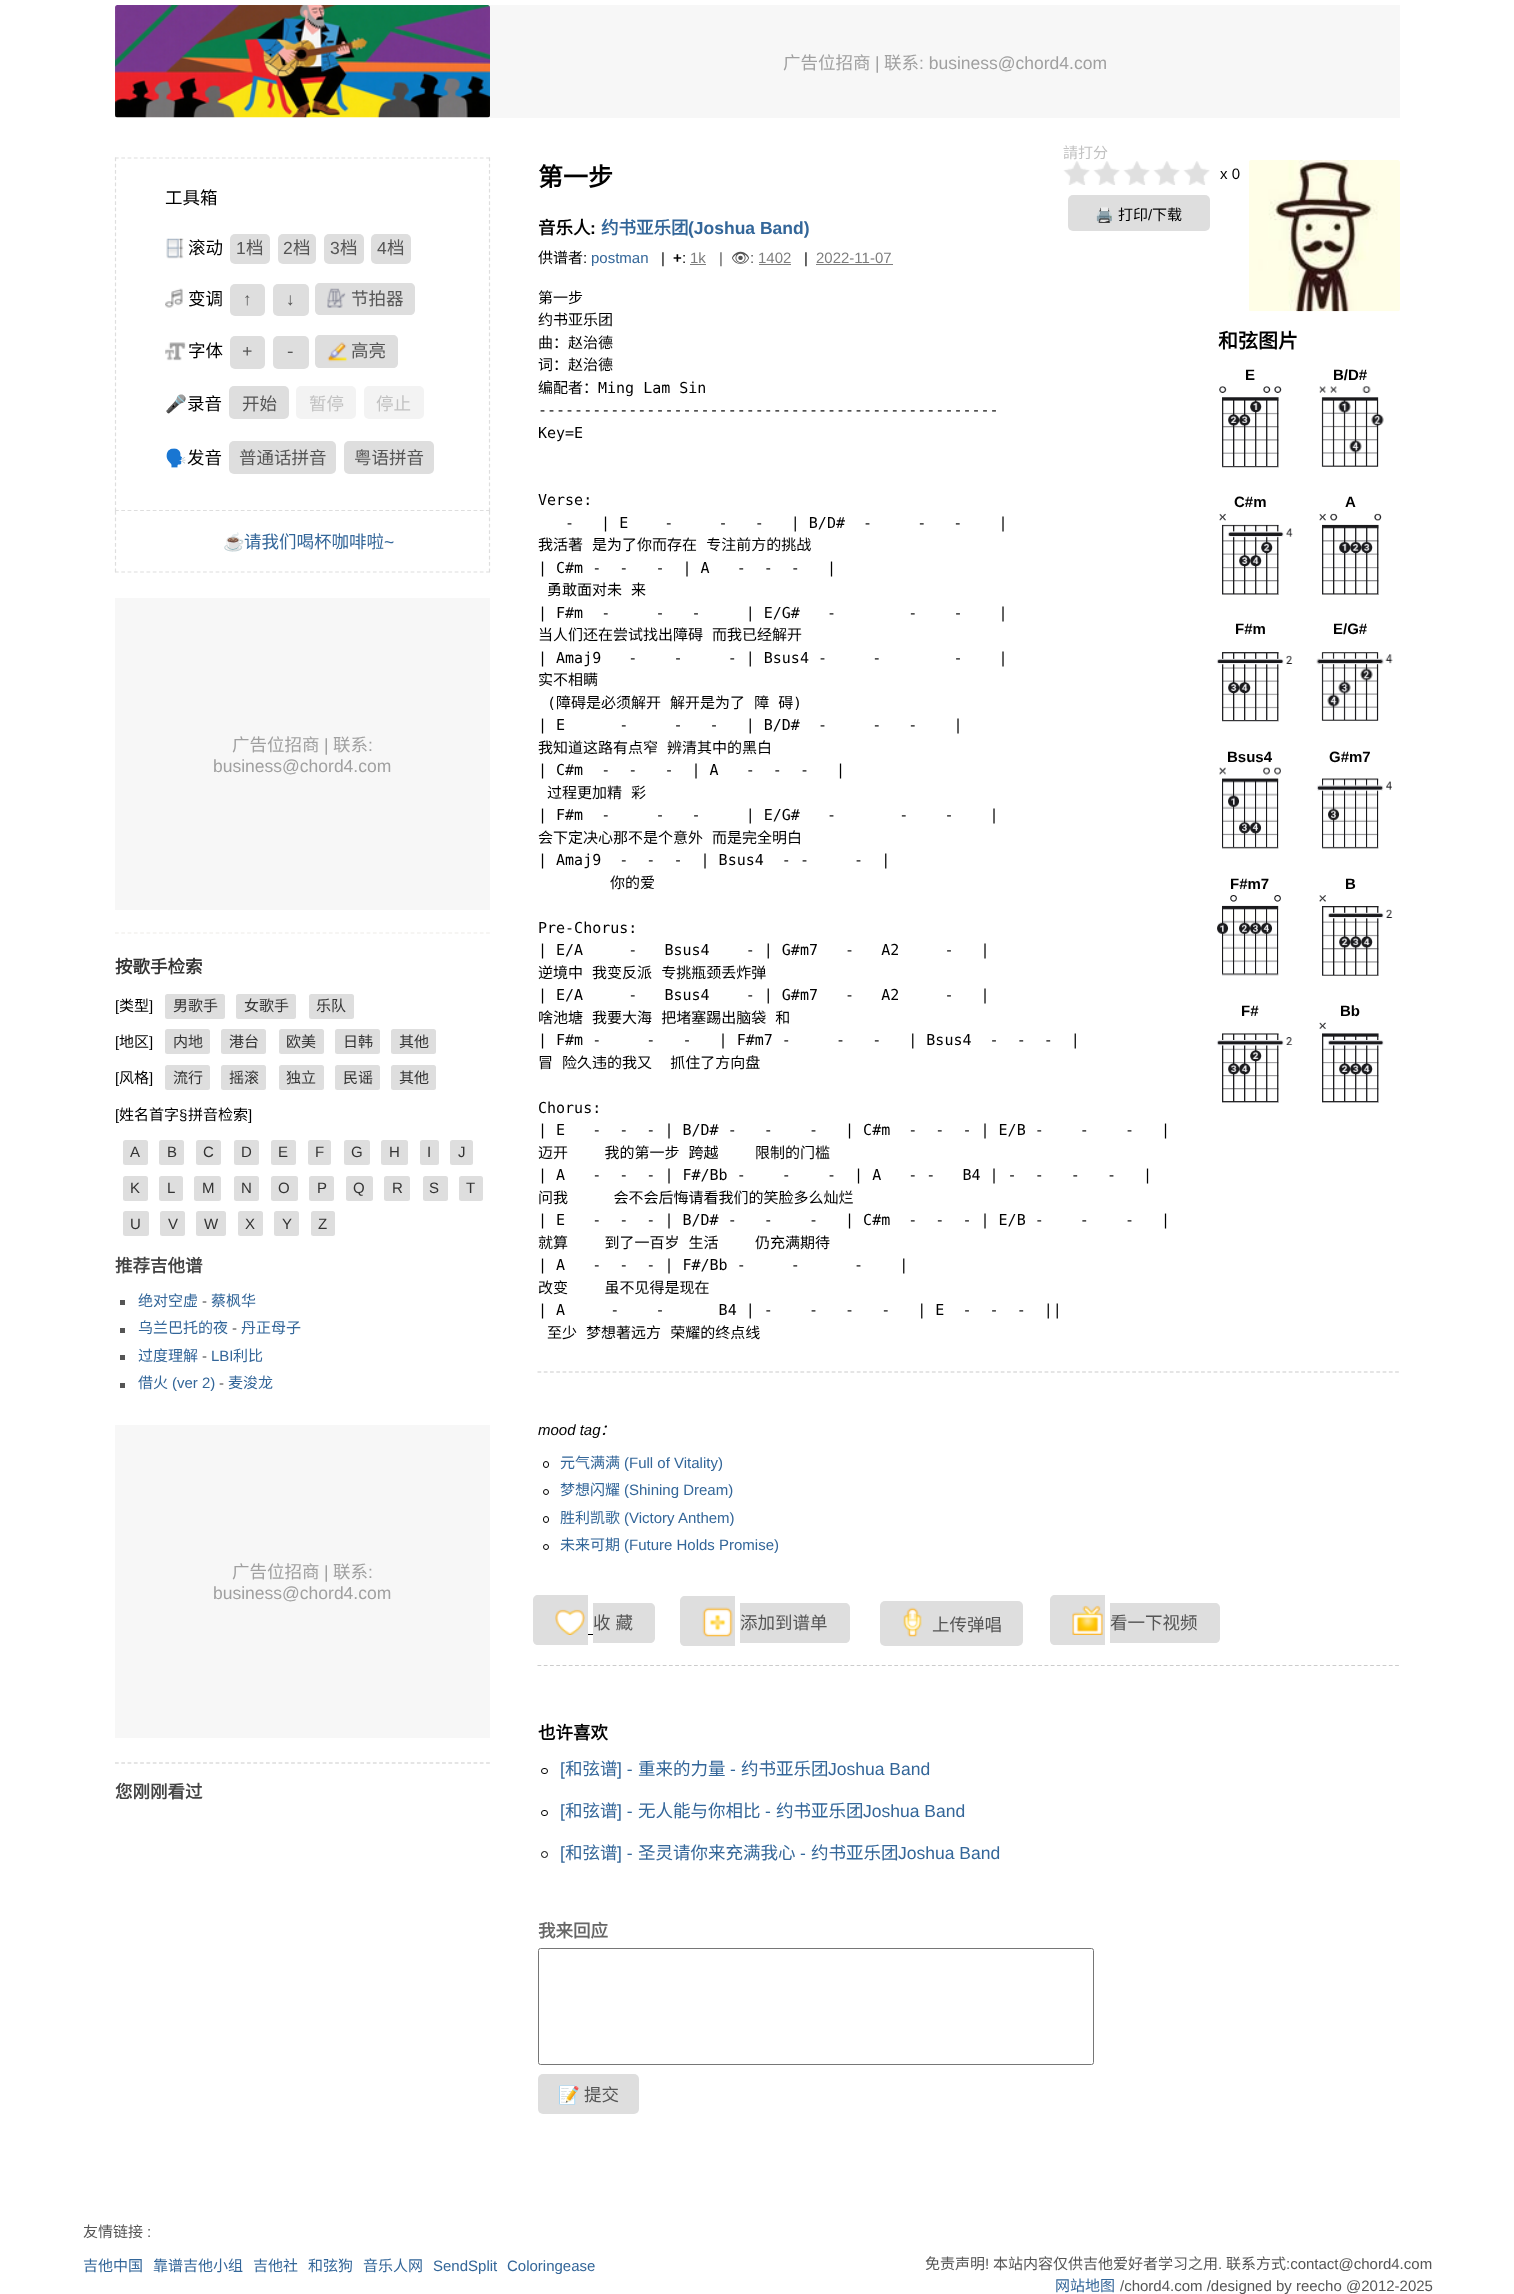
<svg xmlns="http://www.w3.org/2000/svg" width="1514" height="2294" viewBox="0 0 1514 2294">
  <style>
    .t1 { font: 17.5px Noto Sans CJK SC; fill: #a0a0a0; }
    .t2 { font: 17.5px Liberation Sans; fill: #a0a0a0; }
    .t3 { font: 17.5px Noto Sans CJK SC; fill: #000; }
    .t4 { font: 17.5px Liberation Sans; fill: #555; }
    .t5 { font: 17.5px Noto Sans CJK SC; fill: #555; }
    .t6 { font: 17.5px Liberation Mono; fill: #555; }
    .t7 { font: 17.5px Noto Color Emoji; fill: #000; }
    .t8 { font: 17.5px Noto Sans CJK SC; fill: #c2c2c2; }
    .t9 { font: 17.5px Noto Color Emoji; fill: #369; }
    .t10 { font: 17.5px Noto Sans CJK SC; fill: #369; }
    .t11 { font: 17.5px Liberation Sans; fill: #369; }
    .t12 { font: bold 17.5px Noto Sans CJK SC; fill: #333; }
    .t13 { font: 15px Liberation Sans; fill: #000; }
    .t14 { font: 15px Noto Sans CJK SC; fill: #000; }
    .t15 { font: 15px Noto Sans CJK SC; fill: #333; }
    .t16 { font: 15px Liberation Sans; fill: #333; }
    .t17 { font: bold 17.5px Noto Sans CJK SC; fill: #444; }
    .t18 { font: 15px Noto Sans CJK SC; fill: #369; }
    .t19 { font: 15px Liberation Sans; fill: #555; }
    .t20 { font: 15px Liberation Sans; fill: #369; }
    .t21 { font: bold 25px Noto Sans CJK SC; fill: #000; }
    .t22 { font: 15px Noto Sans CJK SC; fill: #c2c2c2; }
    .t23 { font: 15px Noto Color Emoji; fill: #000; }
    .t24 { font: bold 17.5px Noto Sans CJK SC; fill: #000; }
    .t25 { font: bold 17.5px Liberation Sans; fill: #000; }
    .t26 { font: bold 17.5px Noto Sans CJK SC; fill: #369; }
    .t27 { font: bold 17.5px Liberation Sans; fill: #369; }
    .t28 { font: bold 15px Liberation Sans; fill: #000; }
    .t29 { font: 15px Liberation Sans; fill: #7d7d7d; }
    .t30 { font: bold 15px Noto Emoji; fill: #555; }
    .t31 { font: 15px DejaVu Sans Mono; fill: #000; }
    .t32 { font: bold 20px Noto Sans CJK SC; fill: #000; }
    .t33 { font: italic 15px Liberation Sans; fill: #000; }
    .t34 { font: italic 15px Noto Sans CJK SC; fill: #000; }
    .t35 { font: bold 17.5px Noto Sans CJK SC; fill: #666; }
    .t36 { font: 17.5px Noto Color Emoji; fill: #555; }
    .t37 { font: 15px Noto Sans CJK SC; fill: #555; }
  </style>
  <rect width="100%" height="100%" fill="#fff"/>
  <image x="115" y="5" width="375" height="113" href="images/1.png"/>
  <rect x="490" y="5" width="910" height="113" fill="#f7f7f7"/>
  <text x="783" y="69" class="t1">广告位招商</text>
  <text x="875" y="69" class="t2">|</text>
  <text x="884" y="69" class="t1">联系</text>
  <text x="919" y="69" class="t2">: business@chord4.com</text>
  <path d="M115 158H490" fill="none" stroke="#dedede" stroke-width="1.2" stroke-dasharray="3.75 2.54"/>
  <path d="M489.5 157.5V511" fill="none" stroke="#dedede" stroke-width="1.2" stroke-dasharray="3.75 2.5"/>
  <path d="M115 510.5H490" fill="none" stroke="#dedede" stroke-width="1.2" stroke-dasharray="3.75 2.54"/>
  <path d="M115.5 157.5V511" fill="none" stroke="#dedede" stroke-width="1.2" stroke-dasharray="3.75 2.5"/>
  <text x="165" y="204" class="t3">工具箱</text>
  <image x="166" y="238" width="18" height="21" href="images/2.png"/>
  <text x="188" y="254" class="t3">滚动</text>
  <rect x="230" y="234" width="40" height="30" rx="5" fill="#dedede"/>
  <text x="236" y="254" class="t4">1</text>
  <text x="246" y="254" class="t5">档</text>
  <rect x="278" y="234" width="38" height="30" rx="5" fill="#dedede"/>
  <text x="283" y="254" class="t4">2</text>
  <text x="293" y="254" class="t5">档</text>
  <rect x="324" y="234" width="40" height="30" rx="5" fill="#dedede"/>
  <text x="330" y="254" class="t4">3</text>
  <text x="340" y="254" class="t5">档</text>
  <rect x="371" y="234" width="40" height="30" rx="5" fill="#dedede"/>
  <text x="377" y="254" class="t4">4</text>
  <text x="387" y="254" class="t5">档</text>
  <image x="165" y="288" width="18" height="20" href="images/3.png"/>
  <text x="188" y="305" class="t3">变调</text>
  <rect x="230" y="284" width="35" height="32" rx="5" fill="#dedede"/>
  <text x="242" y="305" class="t6">↑</text>
  <rect x="273" y="284" width="36" height="32" rx="5" fill="#dedede"/>
  <text x="285" y="305" class="t6">↓</text>
  <path d="M320 283H350V315H320C317 315 315 313 315 310V288C315 285 317 283 320 283Z" fill="#dedede"/>
  <path d="M350 283H410C413 283 415 285 415 288V310C415 313 413 315 410 315H350Z" fill="#dedede"/>
  <image x="327" y="288" width="19" height="20" href="images/4.png"/>
  <text x="351" y="305" class="t5">节拍器</text>
  <image x="165" y="342" width="21" height="19" href="images/5.png"/>
  <text x="188" y="357" class="t3">字体</text>
  <rect x="230" y="336" width="35" height="33" rx="5" fill="#dedede"/>
  <text x="242" y="357" class="t6">+</text>
  <rect x="273" y="336" width="36" height="33" rx="5" fill="#dedede"/>
  <text x="285" y="357" class="t6">-</text>
  <path d="M320 335H350V368H320C317 368 315 366 315 363V340C315 337 317 335 320 335Z" fill="#dedede"/>
  <path d="M350 335H393C396 335 398 337 398 340V363C398 366 396 368 393 368H350Z" fill="#dedede"/>
  <image x="327" y="342" width="21" height="20" href="images/6.png"/>
  <text x="351" y="357" class="t5">高亮</text>
  <text x="165" y="410" class="t7">🎤</text>
  <text x="187" y="410" class="t3">录音</text>
  <rect x="229" y="386" width="60" height="33" rx="5" fill="#dedede"/>
  <text x="242" y="410" class="t5">开始</text>
  <rect x="296" y="386" width="60" height="33" rx="5" fill="#f3f3f3"/>
  <text x="309" y="410" class="t8">暂停</text>
  <rect x="364" y="386" width="60" height="33" rx="5" fill="#f3f3f3"/>
  <text x="376" y="410" class="t8">停止</text>
  <text x="165" y="464" class="t7">🗣️</text>
  <text x="187" y="464" class="t3">发音</text>
  <rect x="229" y="441" width="107" height="33" rx="5" fill="#dedede"/>
  <text x="239" y="464" class="t5">普通话拼音</text>
  <rect x="344" y="441" width="90" height="33" rx="5" fill="#dedede"/>
  <text x="354" y="464" class="t5">粤语拼音</text>
  <path d="M489.5 511V572.5" fill="none" stroke="#dedede" stroke-width="1.2" stroke-dasharray="3.75 2.64"/>
  <path d="M115 572H490" fill="none" stroke="#dedede" stroke-width="1.2" stroke-dasharray="3.75 2.54"/>
  <path d="M115.5 511V572.5" fill="none" stroke="#dedede" stroke-width="1.2" stroke-dasharray="3.75 2.64"/>
  <text x="223" y="548" class="t9">☕</text>
  <text x="244" y="548" class="t10">请我们喝杯咖啡啦</text>
  <text x="384" y="548" class="t11">~</text>
  <rect x="115" y="598" width="375" height="312" fill="#f7f7f7"/>
  <text x="232" y="751" class="t1">广告位招商</text>
  <text x="324" y="751" class="t2">|</text>
  <text x="333" y="751" class="t1">联系</text>
  <text x="368" y="751" class="t2">:</text>
  <text x="213" y="772" class="t2">business@chord4.com</text>
  <path d="M115 933H490" fill="none" stroke="#eeebe7" stroke-width="1.2" stroke-dasharray="3.75 2.54"/>
  <text x="115" y="973" class="t12">按歌手检索</text>
  <text x="115" y="1011" class="t13">[</text>
  <text x="119" y="1011" class="t14">类型</text>
  <text x="149" y="1011" class="t13">]</text>
  <rect x="165" y="994" width="60" height="25" rx="2.5" fill="#dedede"/>
  <text x="173" y="1011" class="t15">男歌手</text>
  <rect x="236" y="994" width="60" height="25" rx="2.5" fill="#dedede"/>
  <text x="244" y="1011" class="t15">女歌手</text>
  <rect x="309" y="994" width="45" height="25" rx="2.5" fill="#dedede"/>
  <text x="316" y="1011" class="t15">乐队</text>
  <text x="115" y="1047" class="t13">[</text>
  <text x="119" y="1047" class="t14">地区</text>
  <text x="149" y="1047" class="t13">]</text>
  <rect x="165" y="1029" width="45" height="25" rx="2.5" fill="#dedede"/>
  <text x="173" y="1047" class="t15">内地</text>
  <rect x="221" y="1029" width="45" height="25" rx="2.5" fill="#dedede"/>
  <text x="229" y="1047" class="t15">港台</text>
  <rect x="279" y="1029" width="45" height="25" rx="2.5" fill="#dedede"/>
  <text x="286" y="1047" class="t15">欧美</text>
  <rect x="335" y="1029" width="45" height="25" rx="2.5" fill="#dedede"/>
  <text x="343" y="1047" class="t15">日韩</text>
  <rect x="391" y="1029" width="45" height="25" rx="2.5" fill="#dedede"/>
  <text x="399" y="1047" class="t15">其他</text>
  <text x="115" y="1083" class="t13">[</text>
  <text x="119" y="1083" class="t14">风格</text>
  <text x="149" y="1083" class="t13">]</text>
  <rect x="165" y="1065" width="45" height="25" rx="2.5" fill="#dedede"/>
  <text x="173" y="1083" class="t15">流行</text>
  <rect x="221" y="1065" width="45" height="25" rx="2.5" fill="#dedede"/>
  <text x="229" y="1083" class="t15">摇滚</text>
  <rect x="279" y="1065" width="45" height="25" rx="2.5" fill="#dedede"/>
  <text x="286" y="1083" class="t15">独立</text>
  <rect x="335" y="1065" width="45" height="25" rx="2.5" fill="#dedede"/>
  <text x="343" y="1083" class="t15">民谣</text>
  <rect x="391" y="1065" width="45" height="25" rx="2.5" fill="#dedede"/>
  <text x="399" y="1083" class="t15">其他</text>
  <text x="115" y="1120" class="t13">[</text>
  <text x="119" y="1120" class="t14">姓名首字</text>
  <text x="179" y="1120" class="t13">§</text>
  <text x="188" y="1120" class="t14">拼音检索</text>
  <text x="248" y="1120" class="t13">]</text>
  <rect x="123" y="1140" width="25" height="25" rx="2.5" fill="#dedede"/>
  <text x="130" y="1157" class="t16">A</text>
  <rect x="159" y="1140" width="25" height="25" rx="2.5" fill="#dedede"/>
  <text x="167" y="1157" class="t16">B</text>
  <rect x="196" y="1140" width="25" height="25" rx="2.5" fill="#dedede"/>
  <text x="203" y="1157" class="t16">C</text>
  <rect x="234" y="1140" width="25" height="25" rx="2.5" fill="#dedede"/>
  <text x="241" y="1157" class="t16">D</text>
  <rect x="271" y="1140" width="25" height="25" rx="2.5" fill="#dedede"/>
  <text x="278" y="1157" class="t16">E</text>
  <rect x="308" y="1140" width="23" height="25" rx="2.5" fill="#dedede"/>
  <text x="315" y="1157" class="t16">F</text>
  <rect x="344" y="1140" width="26" height="25" rx="2.5" fill="#dedede"/>
  <text x="351" y="1157" class="t16">G</text>
  <rect x="381" y="1140" width="27" height="25" rx="2.5" fill="#dedede"/>
  <text x="389" y="1157" class="t16">H</text>
  <rect x="420" y="1140" width="19" height="25" rx="2.5" fill="#dedede"/>
  <text x="427" y="1157" class="t16">I</text>
  <rect x="450" y="1140" width="23" height="25" rx="2.5" fill="#dedede"/>
  <text x="458" y="1157" class="t16">J</text>
  <rect x="123" y="1176" width="25" height="25" rx="2.5" fill="#dedede"/>
  <text x="130" y="1193" class="t16">K</text>
  <rect x="159" y="1176" width="24" height="25" rx="2.5" fill="#dedede"/>
  <text x="167" y="1193" class="t16">L</text>
  <rect x="194" y="1176" width="27" height="25" rx="2.5" fill="#dedede"/>
  <text x="202" y="1193" class="t16">M</text>
  <rect x="234" y="1176" width="25" height="25" rx="2.5" fill="#dedede"/>
  <text x="241" y="1193" class="t16">N</text>
  <rect x="271" y="1176" width="27" height="25" rx="2.5" fill="#dedede"/>
  <text x="278" y="1193" class="t16">O</text>
  <rect x="309" y="1176" width="25" height="25" rx="2.5" fill="#dedede"/>
  <text x="317" y="1193" class="t16">P</text>
  <rect x="346" y="1176" width="27" height="25" rx="2.5" fill="#dedede"/>
  <text x="353" y="1193" class="t16">Q</text>
  <rect x="384" y="1176" width="26" height="25" rx="2.5" fill="#dedede"/>
  <text x="392" y="1193" class="t16">R</text>
  <rect x="423" y="1176" width="25" height="25" rx="2.5" fill="#dedede"/>
  <text x="429" y="1193" class="t16">S</text>
  <rect x="459" y="1176" width="24" height="25" rx="2.5" fill="#dedede"/>
  <text x="466" y="1193" class="t16">T</text>
  <rect x="123" y="1211" width="26" height="25" rx="2.5" fill="#dedede"/>
  <text x="130" y="1229" class="t16">U</text>
  <rect x="160" y="1211" width="25" height="25" rx="2.5" fill="#dedede"/>
  <text x="168" y="1229" class="t16">V</text>
  <rect x="196" y="1211" width="30" height="25" rx="2.5" fill="#dedede"/>
  <text x="204" y="1229" class="t16">W</text>
  <rect x="238" y="1211" width="25" height="25" rx="2.5" fill="#dedede"/>
  <text x="245" y="1229" class="t16">X</text>
  <rect x="274" y="1211" width="25" height="25" rx="2.5" fill="#dedede"/>
  <text x="282" y="1229" class="t16">Y</text>
  <rect x="311" y="1211" width="24" height="25" rx="2.5" fill="#dedede"/>
  <text x="318" y="1229" class="t16">Z</text>
  <text x="115" y="1272" class="t17">推荐吉他谱</text>
  <rect x="120" y="1300" width="5" height="5" fill="#555"/>
  <text x="138" y="1306" class="t18">绝对空虚</text>
  <text x="202" y="1306" class="t19">-</text>
  <text x="211" y="1306" class="t18">蔡枫华</text>
  <rect x="120" y="1328" width="5" height="5" fill="#555"/>
  <text x="138" y="1333" class="t18">乌兰巴托的夜</text>
  <text x="232" y="1333" class="t19">-</text>
  <text x="241" y="1333" class="t18">丹正母子</text>
  <rect x="120" y="1355" width="5" height="5" fill="#555"/>
  <text x="138" y="1361" class="t18">过度理解</text>
  <text x="202" y="1361" class="t19">-</text>
  <text x="211" y="1361" class="t20">LBI</text>
  <text x="233" y="1361" class="t18">利比</text>
  <rect x="120" y="1383" width="5" height="5" fill="#555"/>
  <text x="138" y="1388" class="t18">借火</text>
  <text x="172" y="1388" class="t20">(ver 2)</text>
  <text x="219" y="1388" class="t19">-</text>
  <text x="228" y="1388" class="t18">麦浚龙</text>
  <rect x="115" y="1425" width="375" height="313" fill="#f7f7f7"/>
  <text x="232" y="1578" class="t1">广告位招商</text>
  <text x="324" y="1578" class="t2">|</text>
  <text x="333" y="1578" class="t1">联系</text>
  <text x="368" y="1578" class="t2">:</text>
  <text x="213" y="1599" class="t2">business@chord4.com</text>
  <path d="M115 1763H490" fill="none" stroke="#ccc" stroke-width="1.2" stroke-dasharray="3.75 2.54"/>
  <text x="115" y="1798" class="t17">您刚刚看过</text>
  <text x="538" y="186" class="t21">第一步</text>
  <text x="1063" y="158" class="t22">請打分</text>
  <image x="1063" y="161" width="27" height="24" href="images/7.png"/>
  <image x="1093" y="161" width="27" height="24" href="images/7.png"/>
  <image x="1123" y="161" width="27" height="24" href="images/7.png"/>
  <image x="1153" y="161" width="27" height="24" href="images/7.png"/>
  <image x="1183" y="161" width="27" height="24" href="images/8.png"/>
  <text x="1220" y="179" class="t13">x 0</text>
  <image x="1249" y="160" width="151" height="152" href="images/9.png"/>
  <rect x="1068" y="195" width="142" height="36" rx="5" fill="#dedede"/>
  <text x="1095" y="220" class="t23">🖨️</text>
  <text x="1118" y="220" class="t14">打印</text>
  <text x="1148" y="220" class="t13">/</text>
  <text x="1152" y="220" class="t14">下载</text>
  <text x="538" y="234" class="t24">音乐人</text>
  <text x="590" y="234" class="t25">:</text>
  <text x="601" y="234" class="t26">约书亚乐团</text>
  <text x="688" y="234" class="t27">(Joshua Band)</text>
  <text x="538" y="263" class="t14">供谱者</text>
  <text x="583" y="263" class="t13">:</text>
  <text x="591" y="263" class="t20">postman</text>
  <text x="661" y="263" class="t13">|</text>
  <text x="673" y="263" class="t28">+</text>
  <text x="682" y="263" class="t13">:</text>
  <text x="690" y="263" class="t29">1k</text>
  <rect x="690" y="264" width="16" height="1" fill="#7d7d7d"/>
  <text x="719" y="263" class="t19">|</text>
  <text x="731" y="263" class="t30">👁</text>
  <text x="750" y="263" class="t19">:</text>
  <text x="758" y="263" class="t29">1402</text>
  <rect x="759" y="264" width="32" height="1" fill="#7d7d7d"/>
  <text x="804" y="263" class="t13">|</text>
  <text x="816" y="263" class="t29">2022-11-07</text>
  <rect x="816" y="264" width="77" height="1" fill="#7d7d7d"/>
  <text x="538" y="303" class="t14">第一步</text>
  <text x="538" y="325" class="t14">约书亚乐团</text>
  <text x="538" y="348" class="t14">曲：赵治德</text>
  <text x="538" y="370" class="t14">词：赵治德</text>
  <text x="538" y="393" class="t14">编配者：</text>
  <text x="598" y="393" class="t31">Ming Lam Sin</text>
  <text x="538" y="415" class="t31">---------------------------------------------------</text>
  <text x="538" y="438" class="t31">Key=E</text>
  <text x="538" y="505" class="t31">Verse:</text>
  <text x="565" y="528" class="t31" xml:space="preserve">-   | E    -     -   -   | B/D#  -     -   -    |</text>
  <text x="538" y="550" word-spacing="5.75" class="t14">我活著 是为了你而存在 专注前方的挑战</text>
  <text x="538" y="573" class="t31" xml:space="preserve">| C#m -  -   -  | A   -  -  -   |</text>
  <text x="547" y="595" word-spacing="5.75" class="t14">勇敢面对未 来</text>
  <text x="538" y="618" class="t31" xml:space="preserve">| F#m  -     -   -     | E/G#   -        -    -    |</text>
  <text x="538" y="640" word-spacing="5.75" class="t14">当人们还在尝试找出障碍 而我已经解开</text>
  <text x="538" y="663" class="t31" xml:space="preserve">| Amaj9   -    -     - | Bsus4 -     -        -    |</text>
  <text x="538" y="685" class="t14">实不相瞒</text>
  <text x="547" y="708" class="t31">(</text>
  <text x="556" y="708" word-spacing="5.75" class="t14">障碍是必须解开 解开是为了 障 碍</text>
  <text x="793" y="708" class="t31">)</text>
  <text x="538" y="730" class="t31" xml:space="preserve">| E      -     -   -   | B/D#  -     -   -    |</text>
  <text x="538" y="753" word-spacing="5.75" class="t14">我知道这路有点窄 辨清其中的黑白</text>
  <text x="538" y="775" class="t31" xml:space="preserve">| C#m  -  -   -  | A   -  -  -   |</text>
  <text x="547" y="798" word-spacing="5.75" class="t14">过程更加精 彩</text>
  <text x="538" y="820" class="t31" xml:space="preserve">| F#m  -     -   -     | E/G#   -       -    -    |</text>
  <text x="538" y="843" word-spacing="5.75" class="t14">会下定决心那不是个意外 而是完全明白</text>
  <text x="538" y="865" class="t31" xml:space="preserve">| Amaj9  -  -  -  | Bsus4  - -     -  |</text>
  <text x="610" y="888" class="t14">你的爱</text>
  <text x="538" y="933" class="t31">Pre-Chorus:</text>
  <text x="538" y="955" class="t31" xml:space="preserve">| E/A     -   Bsus4    - | G#m7   -   A2     -   |</text>
  <text x="538" y="978" word-spacing="5.75" class="t14">逆境中 我变反派 专挑瓶颈丢炸弹</text>
  <text x="538" y="1000" class="t31" xml:space="preserve">| E/A     -   Bsus4    - | G#m7   -   A2     -   |</text>
  <text x="538" y="1023" word-spacing="5.75" class="t14">啥池塘 我要大海 把堵塞踢出脑袋 和</text>
  <text x="538" y="1045" class="t31" xml:space="preserve">| F#m -     -   -   | F#m7 -     -   -   | Bsus4  -  -  -  |</text>
  <text x="538" y="1068" word-spacing="5.75" class="t14" xml:space="preserve">冒 险久违的我又  抓住了方向盘</text>
  <text x="538" y="1113" class="t31">Chorus:</text>
  <text x="538" y="1135" class="t31" xml:space="preserve">| E   -  -  - | B/D# -   -    -   | C#m  -  -  - | E/B -    -    -   |</text>
  <text x="538" y="1158" word-spacing="5.75" class="t14" xml:space="preserve">迈开    我的第一步 跨越    限制的门槛</text>
  <text x="538" y="1180" class="t31" xml:space="preserve">| A   -  -  - | F#/Bb -    -    -  | A   - -   B4 | -  -   -   -   |</text>
  <text x="538" y="1203" word-spacing="5.75" class="t14" xml:space="preserve">问我     会不会后悔请看我们的笑脸多么灿烂</text>
  <text x="538" y="1225" class="t31" xml:space="preserve">| E   -  -  - | B/D# -   -    -   | C#m  -  -  - | E/B -    -    -   |</text>
  <text x="538" y="1248" word-spacing="5.75" class="t14" xml:space="preserve">就算    到了一百岁 生活    仍充满期待</text>
  <text x="538" y="1270" class="t31" xml:space="preserve">| A   -  -  - | F#/Bb -     -      -    |</text>
  <text x="538" y="1293" word-spacing="5.75" class="t14" xml:space="preserve">改变    虽不见得是现在</text>
  <text x="538" y="1315" class="t31" xml:space="preserve">| A     -    -      B4 | -    -   -   -   | E  -  -  -  ||</text>
  <text x="547" y="1338" word-spacing="5.75" class="t14">至少 梦想著远方 荣耀的终点线</text>
  <text x="1218" y="348" class="t32">和弦图片</text>
  <text x="1245" y="380" class="t28">E</text>
  <image x="1219" y="386" width="63" height="82" href="images/10.png"/>
  <text x="1333" y="380" class="t28">B/D#</text>
  <image x="1319" y="386" width="65" height="81" href="images/11.png"/>
  <text x="1234" y="507" class="t28">C#m</text>
  <image x="1219" y="513" width="74" height="82" href="images/12.png"/>
  <text x="1345" y="507" class="t28">A</text>
  <image x="1319" y="513" width="63" height="82" href="images/13.png"/>
  <text x="1235" y="634" class="t28">F#m</text>
  <image x="1216" y="652" width="77" height="70" href="images/14.png"/>
  <text x="1333" y="634" class="t28">E/G#</text>
  <image x="1316" y="652" width="77" height="69" href="images/15.png"/>
  <text x="1227" y="762" class="t28">Bsus4</text>
  <image x="1219" y="767" width="62" height="82" href="images/16.png"/>
  <text x="1329" y="762" class="t28">G#m7</text>
  <image x="1316" y="778" width="76" height="71" href="images/17.png"/>
  <text x="1230" y="889" class="t28">F#m7</text>
  <image x="1217" y="895" width="64" height="81" href="images/18.png"/>
  <text x="1345" y="889" class="t28">B</text>
  <image x="1319" y="895" width="74" height="81" href="images/19.png"/>
  <text x="1241" y="1016" class="t28">F#</text>
  <image x="1216" y="1033" width="77" height="70" href="images/20.png"/>
  <text x="1340" y="1016" class="t28">Bb</text>
  <image x="1319" y="1022" width="65" height="81" href="images/21.png"/>
  <path d="M537.5 1372H1400" fill="none" stroke="#ccc" stroke-width="1.2" stroke-dasharray="3.75 2.51"/>
  <text x="538" y="1435" class="t33">mood tag</text>
  <text x="600" y="1435" class="t34">：</text>
  <rect x="543.5" y="1461.5" width="5" height="6" rx="2.5" fill="none" stroke="#000"/>
  <text x="560" y="1468" class="t18">元气满满</text>
  <text x="624" y="1468" class="t20">(Full of Vitality)</text>
  <circle cx="546" cy="1492" r="2.5" fill="none" stroke="#000"/>
  <text x="560" y="1495" class="t18">梦想闪耀</text>
  <text x="624" y="1495" class="t20">(Shining Dream)</text>
  <rect x="543.5" y="1516.5" width="5" height="6" rx="2.5" fill="none" stroke="#000"/>
  <text x="560" y="1523" class="t18">胜利凯歌</text>
  <text x="624" y="1523" class="t20">(Victory Anthem)</text>
  <circle cx="546" cy="1547" r="2.5" fill="none" stroke="#000"/>
  <text x="560" y="1550" class="t18">未来可期</text>
  <text x="624" y="1550" class="t20">(Future Holds Promise)</text>
  <rect x="588" y="1634" width="5" height="1" fill="#000"/>
  <path d="M538 1595H588V1645H538C535 1645 533 1643 533 1640V1600C533 1597 535 1595 538 1595Z" fill="#dedede"/>
  <path d="M593 1603H650C653 1603 655 1605 655 1608V1638C655 1641 653 1643 650 1643H593Z" fill="#dedede"/>
  <image x="555" y="1609" width="31" height="26" href="images/22.png"/>
  <text x="593" y="1629" word-spacing="1" class="t5">收 藏</text>
  <path d="M685 1596H735V1646H685C682 1646 680 1644 680 1641V1601C680 1598 682 1596 685 1596Z" fill="#dedede"/>
  <path d="M740 1603H845C848 1603 850 1605 850 1608V1638C850 1641 848 1643 845 1643H740Z" fill="#dedede"/>
  <image x="702" y="1607" width="31" height="30" href="images/23.png"/>
  <text x="740" y="1629" class="t5">添加到谱单</text>
  <rect x="880" y="1601" width="143" height="45" rx="5" fill="#dedede"/>
  <image x="903" y="1607" width="19" height="30" href="images/24.png"/>
  <text x="932" y="1631" class="t5">上传弹唱</text>
  <path d="M1055 1595H1105V1645H1055C1052 1645 1050 1643 1050 1640V1600C1050 1597 1052 1595 1055 1595Z" fill="#dedede"/>
  <path d="M1110 1603H1215C1218 1603 1220 1605 1220 1608V1638C1220 1641 1218 1643 1215 1643H1110Z" fill="#dedede"/>
  <image x="1072" y="1605" width="31" height="30" href="images/25.png"/>
  <text x="1110" y="1629" class="t5">看一下视频</text>
  <path d="M537.5 1665.5H1400" fill="none" stroke="#ccc" stroke-width="1.2" stroke-dasharray="3.75 2.51"/>
  <text x="538" y="1739" class="t24">也许喜欢</text>
  <rect x="541.5" y="1768.5" width="6" height="5" rx="2.5" fill="none" stroke="#000"/>
  <text x="560" y="1775" class="t11">[</text>
  <text x="565" y="1775" class="t10">和弦谱</text>
  <text x="617" y="1775" class="t11">] -</text>
  <text x="638" y="1775" class="t10">重来的力量</text>
  <text x="730" y="1775" class="t11">-</text>
  <text x="741" y="1775" class="t10">约书亚乐团</text>
  <text x="828" y="1775" class="t11">Joshua Band</text>
  <rect x="541.5" y="1810.5" width="6" height="5" rx="2.5" fill="none" stroke="#000"/>
  <text x="560" y="1817" class="t11">[</text>
  <text x="565" y="1817" class="t10">和弦谱</text>
  <text x="617" y="1817" class="t11">] -</text>
  <text x="638" y="1817" class="t10">无人能与你相比</text>
  <text x="765" y="1817" class="t11">-</text>
  <text x="776" y="1817" class="t10">约书亚乐团</text>
  <text x="863" y="1817" class="t11">Joshua Band</text>
  <circle cx="544.5" cy="1854.5" r="3" fill="none" stroke="#000"/>
  <text x="560" y="1859" class="t11">[</text>
  <text x="565" y="1859" class="t10">和弦谱</text>
  <text x="617" y="1859" class="t11">] -</text>
  <text x="638" y="1859" class="t10">圣灵请你来充满我心</text>
  <text x="800" y="1859" class="t11">-</text>
  <text x="811" y="1859" class="t10">约书亚乐团</text>
  <text x="898" y="1859" class="t11">Joshua Band</text>
  <text x="538" y="1937" class="t35">我来回应</text>
  <rect x="538.5" y="1948.5" width="555" height="116" rx="2" fill="none" stroke="#767676"/>
  <rect x="538" y="2074" width="101" height="40" rx="5" fill="#dedede"/>
  <text x="558" y="2101" class="t36">📝</text>
  <text x="584" y="2101" class="t5">提交</text>
  <text x="83" y="2237" class="t37">友情链接</text>
  <text x="147" y="2237" class="t19">:</text>
  <text x="83" y="2271" class="t18">吉他中国</text>
  <text x="153" y="2271" class="t18">靠谱吉他小组</text>
  <text x="253" y="2271" class="t18">吉他社</text>
  <text x="308" y="2271" class="t18">和弦狗</text>
  <text x="363" y="2271" class="t18">音乐人网</text>
  <text x="433" y="2271" class="t20">SendSplit</text>
  <text x="507" y="2271" class="t20">Coloringease</text>
  <text x="925" y="2269" class="t37">免责声明</text>
  <text x="985" y="2269" class="t19">!</text>
  <text x="993" y="2269" class="t37">本站内容仅供吉他爱好者学习之用</text>
  <text x="1218" y="2269" class="t19">.</text>
  <text x="1226" y="2269" class="t37">联系方式</text>
  <text x="1286" y="2269" class="t19">:contact@chord4.com</text>
  <text x="1055" y="2291" class="t18">网站地图</text>
  <text x="1120" y="2291" class="t19">/chord4.com /designed by reecho @2012-2025</text>
</svg>
